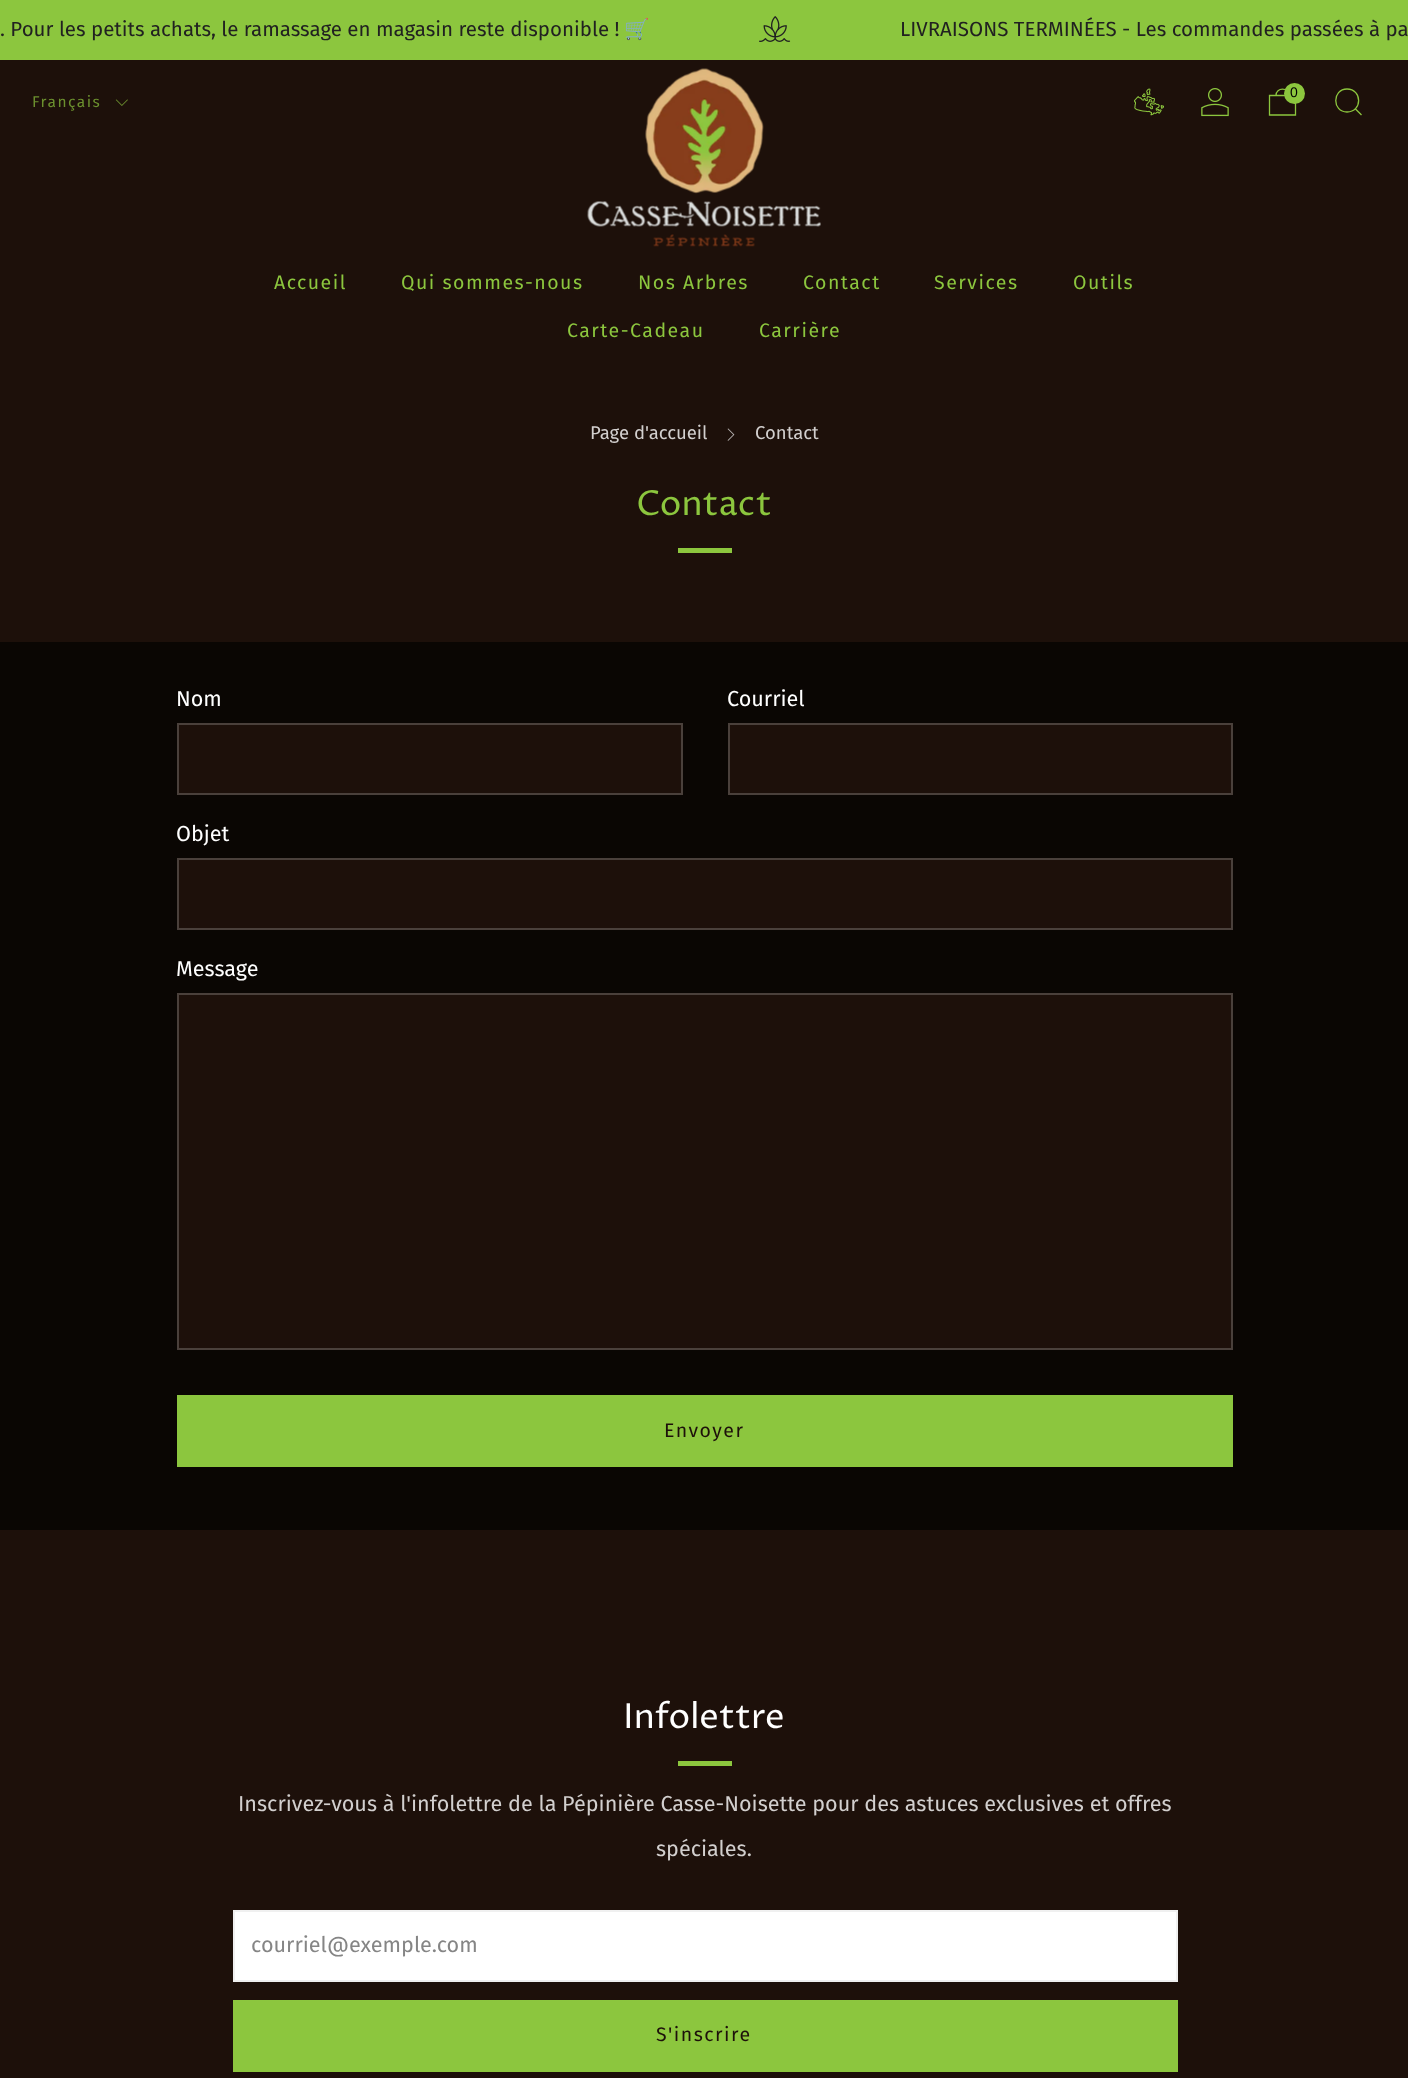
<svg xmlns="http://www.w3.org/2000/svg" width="1408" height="2078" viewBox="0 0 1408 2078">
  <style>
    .t1 { font: 20.5px Fira Sans; fill: #212121; }
    .t2 { font: 20.5px Noto Color Emoji; fill: #212121; }
    .t3 { font: 14px Liberation Sans; fill: #000; }
    .t4 { font: 15.5px Fira Sans; letter-spacing: 1.5px; fill: #6b8f2e; }
    .t5 { font: 19.5px Fira Sans; letter-spacing: 1.5px; fill: #8cc63e; }
    .t6 { font: 18.5px Fira Sans; fill: #d2cfce; }
    .t7 { font: 34.5px Proza Libre; fill: #8cc63e; }
    .t8 { font: 21.6px Fira Sans; fill: #fff; }
    .t9 { font: 19.5px Fira Sans; letter-spacing: 1.5px; fill: #1d100a; }
    .t10 { font: 34.5px Proza Libre; fill: #fff; }
    .t11 { font: 21.6px Fira Sans; fill: #d2cfce; }
    .t12 { font: 21.6px Fira Sans; fill: #858585; }
  </style>
  <rect width="100%" height="100%" fill="#1d100a"/>
  <rect x="0" y="0" width="1408" height="60" fill="#8cc63e"/>
  <text x="0" y="36" class="t1">. Pour les petits achats, le ramassage en magasin reste disponible !</text>
  <text x="624" y="36" class="t2">🛒</text>
  <image x="759" y="16" width="32" height="26" href="images/1.png"/>
  <text x="900" y="36" class="t1">LIVRAISONS TERMINÉES - Les commandes passées à pa</text>
  <image x="587" y="68" width="234" height="179" href="images/2.png"/>
  <image x="1134" y="88" width="30" height="28" href="images/3.png"/>
  <image x="1201" y="88" width="28" height="29" href="images/4.png"/>
  <path d="M1269.5 95.5H1295.5V115H1269.5ZM1289 95.5C1289 87 1276 87 1276 95.5" fill="none" stroke="#8cc63e" stroke-width="1.3"/>
  <circle cx="1294.5" cy="93.5" r="10.5" fill="#8cc63e"/>
  <text x="1290" y="97" class="t3">0</text>
  <path d="M1347 112C1362.5 112 1362.5 89 1347 89C1332 89 1332 112 1347 112ZM1355.5 109L1361.5 115" fill="none" stroke="#8cc63e" stroke-width="1.3"/>
  <text x="32" y="107" class="t4">Français</text>
  <image x="115" y="99" width="13" height="7" href="images/5.png"/>
  <text x="274" y="289" class="t5">Accueil</text>
  <text x="401" y="289" class="t5">Qui sommes-nous</text>
  <text x="638" y="289" class="t5">Nos Arbres</text>
  <text x="803" y="289" class="t5">Contact</text>
  <text x="934" y="289" class="t5">Services</text>
  <text x="1073" y="289" class="t5">Outils</text>
  <text x="567" y="337" class="t5">Carte-Cadeau</text>
  <text x="759" y="337" class="t5">Carrière</text>
  <text x="590" y="439" class="t6">Page d'accueil</text>
  <image x="727" y="428" width="8" height="13" href="images/6.png"/>
  <text x="755" y="439" class="t6">Contact</text>
  <text x="636" y="515" class="t7">Contact</text>
  <rect x="678" y="548" width="54" height="5" fill="#8cc63e"/>
  <rect x="0" y="642" width="1408" height="888" fill="#0a0603"/>
  <text x="176" y="706" class="t8">Nom</text>
  <rect x="178" y="724" width="504" height="70" fill="#1d100a" stroke="#4a403b" stroke-width="2"/>
  <text x="727" y="706" class="t8">Courriel</text>
  <rect x="729" y="724" width="503" height="70" fill="#1d100a" stroke="#4a403b" stroke-width="2"/>
  <text x="176" y="841" class="t8">Objet</text>
  <rect x="178" y="859" width="1054" height="70" fill="#1d100a" stroke="#4a403b" stroke-width="2"/>
  <text x="176" y="976" class="t8">Message</text>
  <rect x="178" y="994" width="1054" height="355" fill="#1d100a" stroke="#4a403b" stroke-width="2"/>
  <rect x="177" y="1395" width="1056" height="72" fill="#8cc63e"/>
  <text x="664" y="1437" class="t9">Envoyer</text>
  <text x="623" y="1728" class="t10">Infolettre</text>
  <rect x="678" y="1761" width="54" height="5" fill="#8cc63e"/>
  <text x="238" y="1811" class="t11">Inscrivez-vous à l'infolettre de la Pépinière Casse-Noisette pour des astuces exclusives et offres</text>
  <text x="656" y="1856" class="t11">spéciales.</text>
  <rect x="234" y="1911" width="943" height="70" fill="#fff" stroke="#f0f0f0" stroke-width="2"/>
  <text x="251" y="1952" class="t12">courriel@exemple.com</text>
  <rect x="233" y="2000" width="945" height="72" fill="#8cc63e"/>
  <text x="656" y="2041" class="t9">S'inscrire</text>
</svg>
